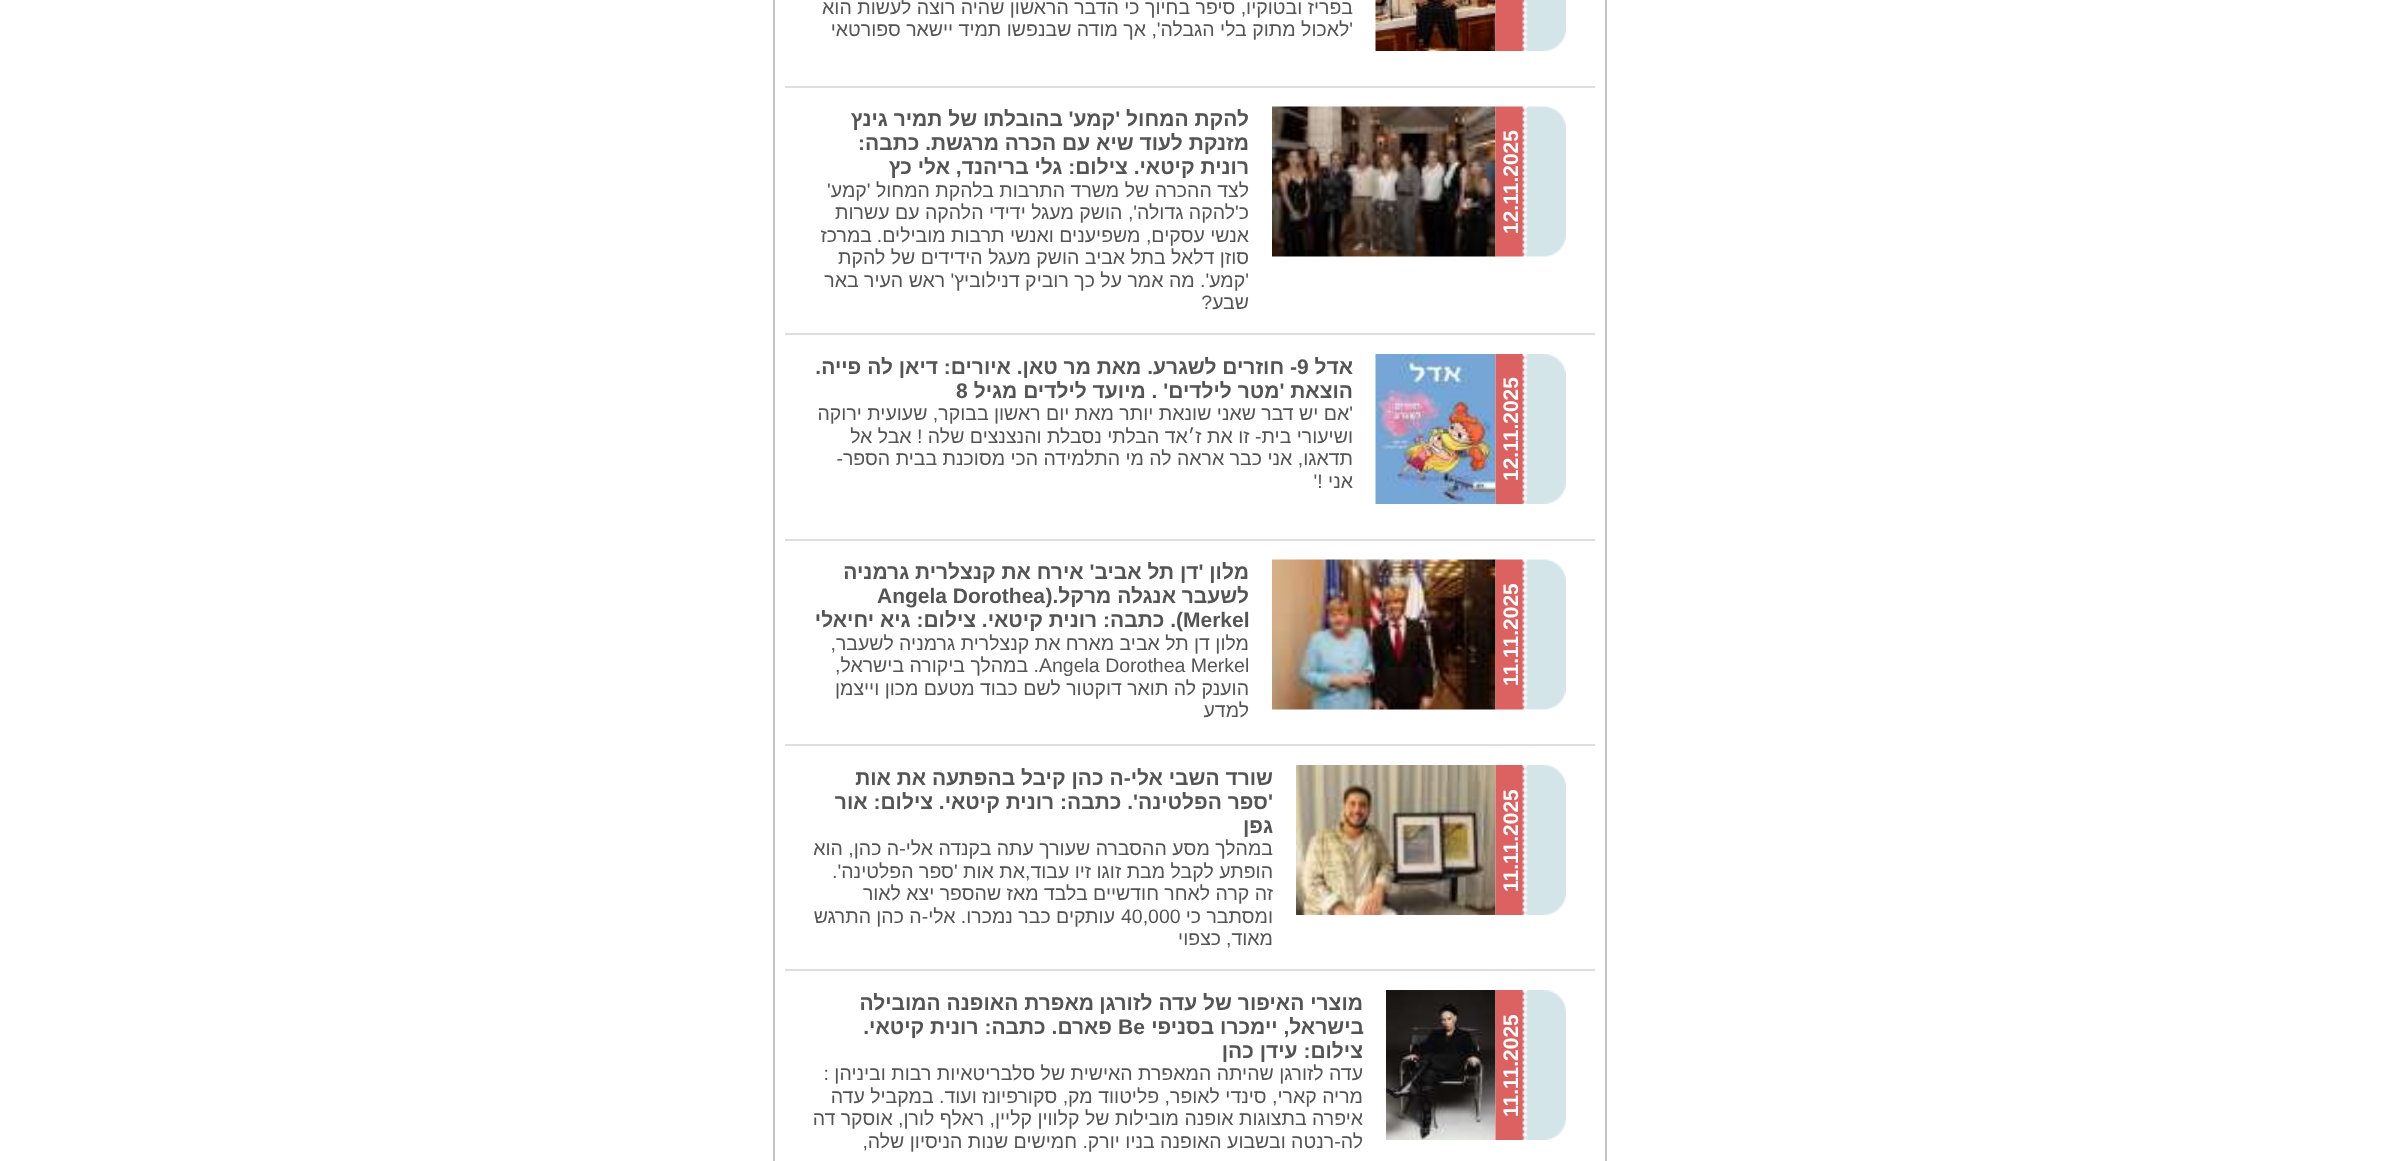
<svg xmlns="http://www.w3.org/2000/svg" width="2381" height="1161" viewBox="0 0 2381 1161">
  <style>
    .t1 { font: 19.5px Liberation Sans; direction: rtl; fill: #545454; }
    .t2 { font: bold 21px Liberation Sans; direction: rtl; fill: #545454; }
    .t3 { font: bold 21px Liberation Sans; fill: #fff; }
    .t4 { font: bold 21px Liberation Sans; fill: #545454; }
    .t5 { font: 19.5px Liberation Sans; fill: #545454; }
  </style>
  <rect width="100%" height="100%" fill="#fff"/>
  <rect x="1605" y="0" width="2" height="1161" fill="#c4c4c4"/>
  <rect x="773" y="0" width="2" height="1161" fill="#c4c4c4"/>
  <image x="1375" y="0" width="121" height="51" href="images/2.png"/>
  <image x="1495" y="0" width="71" height="51" href="images/1.png"/>
  <text x="1353" y="14" class="t1">בפריז ובטוקיו, סיפר בחיוך כי הדבר הראשון שהיה רוצה לעשות הוא</text>
  <text x="1353" y="36" class="t1">'לאכול מתוק בלי הגבלה', אך מודה שבנפשו תמיד יישאר ספורטאי</text>
  <rect x="785" y="86" width="810" height="2" fill="#dfdfdf"/>
  <image x="1272" y="106" width="224" height="151" href="images/3.png"/>
  <text x="1249" y="126" class="t2">להקת המחול 'קמע'</text>
  <text x="1063" y="126" class="t2">בהובלתו של תמיר גינץ</text>
  <image x="1495" y="106" width="71" height="151" href="images/4.png"/>
  <text x="1518" y="234" transform="rotate(-90 1518 234)" class="t3">12.11.2025</text>
  <text x="1249" y="150" class="t2">מזנקת לעוד שיא עם הכרה מרגשת. כתבה:</text>
  <text x="1249" y="174" class="t2">רונית קיטאי. צילום: גלי בריהנד, אלי כץ</text>
  <text x="1249" y="197" class="t1">לצד ההכרה של משרד התרבות בלהקת המחול 'קמע'</text>
  <text x="1249" y="219" class="t1">כ'להקה גדולה', הושק מעגל ידידי הלהקה עם עשרות</text>
  <text x="1249" y="242" class="t1">אנשי עסקים, משפיענים ואנשי תרבות מובילים.</text>
  <text x="872" y="242" class="t1">במרכז</text>
  <text x="1249" y="264" class="t1">סוזן דלאל בתל אביב הושק מעגל הידידים של להקת</text>
  <text x="1249" y="287" class="t1">'קמע'. מה אמר על כך רוביק דנילוביץ' ראש העיר באר</text>
  <text x="1249" y="309" class="t1">שבע?</text>
  <rect x="785" y="333" width="810" height="2" fill="#dfdfdf"/>
  <image x="1375" y="354" width="121" height="150" href="images/5.png"/>
  <text x="1353" y="374" class="t2">אדל</text>
  <text x="1297" y="374" class="t4">9</text>
  <text x="1297" y="374" class="t2">- חוזרים לשגרע. מאת מר טאן. איורים: דיאן לה פייה.</text>
  <image x="1495" y="354" width="71" height="150" href="images/6.png"/>
  <text x="1518" y="481" transform="rotate(-90 1518 481)" class="t3">12.11.2025</text>
  <text x="1353" y="398" class="t2">הוצאת 'מטר לילדים' . מיועד לילדים מגיל</text>
  <text x="956" y="398" class="t4">8</text>
  <text x="1353" y="420" class="t1">'אם יש דבר שאני שונאת יותר מאת יום ראשון בבוקר, שעועית ירוקה</text>
  <text x="1353" y="443" class="t1">ושיעורי בית- זו את ז׳אד הבלתי נסבלת והנצנצים שלה ! אבל אל</text>
  <text x="1353" y="465" class="t1">תדאגו, אני כבר אראה לה מי התלמידה הכי מסוכנת בבית הספר-</text>
  <text x="1353" y="488" class="t1">אני !'</text>
  <rect x="785" y="539" width="810" height="2" fill="#dfdfdf"/>
  <image x="1272" y="559" width="224" height="151" href="images/7.png"/>
  <text x="1249" y="579" class="t2">מלון 'דן תל אביב' אירח את קנצלרית גרמניה</text>
  <image x="1495" y="559" width="71" height="151" href="images/8.png"/>
  <text x="1518" y="686" transform="rotate(-90 1518 686)" class="t3">11.11.2025</text>
  <text x="1249" y="603" class="t2">לשעבר</text>
  <text x="877" y="603" class="t4">Angela Dorothea</text>
  <text x="1176" y="603" class="t2">אנגלה מרקל.(</text>
  <text x="1183" y="627" class="t4">Merkel</text>
  <text x="1183" y="627" class="t2">). כתבה: רונית קיטאי. צילום: גיא יחיאלי</text>
  <text x="1249" y="650" class="t1">מלון דן תל אביב מארח את קנצלרית גרמניה לשעבר,</text>
  <text x="1039" y="672" class="t5">Angela Dorothea Merkel</text>
  <text x="1039" y="672" class="t1">. במהלך ביקורה בישראל,</text>
  <text x="1249" y="695" class="t1">הוענק לה תואר דוקטור לשם כבוד מטעם מכון וייצמן</text>
  <text x="1249" y="717" class="t1">למדע</text>
  <rect x="785" y="744" width="810" height="2" fill="#dfdfdf"/>
  <image x="1296" y="765" width="200" height="150" href="images/9.png"/>
  <text x="1273" y="785" class="t2">שורד השבי אלי-ה כהן קיבל בהפתעה את אות</text>
  <image x="1495" y="765" width="71" height="150" href="images/10.png"/>
  <text x="1518" y="892" transform="rotate(-90 1518 892)" class="t3">11.11.2025</text>
  <text x="1273" y="809" class="t2">'ספר הפלטינה'. כתבה: רונית קיטאי. צילום: אור</text>
  <text x="1273" y="833" class="t2">גפן</text>
  <text x="1273" y="855" class="t1">במהלך מסע ההסברה שעורך עתה בקנדה אלי-ה כהן, הוא</text>
  <text x="1273" y="878" class="t1">הופתע לקבל מבת זוגו זיו עבוד,את אות 'ספר הפלטינה'.</text>
  <text x="1273" y="900" class="t1">זה קרה לאחר</text>
  <text x="1159" y="900" class="t1">חודשיים בלבד מאז שהספר יצא לאור</text>
  <text x="1273" y="923" class="t1">ומסתבר כי</text>
  <text x="1121" y="923" class="t5">40,000</text>
  <text x="1115" y="923" class="t1">עותקים כבר נמכרו. אלי-ה כהן</text>
  <text x="871" y="923" class="t1">התרגש</text>
  <text x="1273" y="945" class="t1">מאוד,</text>
  <text x="1221" y="945" class="t1">כצפוי</text>
  <rect x="785" y="969" width="810" height="2" fill="#dfdfdf"/>
  <image x="1386" y="990" width="110" height="150" href="images/11.png"/>
  <text x="1363" y="1010" class="t2">מוצרי האיפור של עדה לזורגן</text>
  <text x="1094" y="1010" class="t2">מאפרת האופנה המובילה</text>
  <image x="1495" y="990" width="71" height="150" href="images/12.png"/>
  <text x="1518" y="1117" transform="rotate(-90 1518 1117)" class="t3">11.11.2025</text>
  <text x="1364" y="1034" class="t2">בישראל, יימכרו בסניפי</text>
  <text x="1118" y="1034" class="t4">Be</text>
  <text x="1112" y="1034" class="t2">פארם. כתבה: רונית קיטאי.</text>
  <text x="1363" y="1058" class="t2">צילום: עידן כהן</text>
  <text x="1363" y="1080" class="t1">עדה לזורגן שהיתה המאפרת האישית של סלבריטאיות רבות וביניהן :</text>
  <text x="1363" y="1103" class="t1">מריה קארי, סינדי לאופר, פליטווד מק, סקורפיונז ועוד. במקביל עדה</text>
  <text x="1363" y="1125" class="t1">איפרה בתצוגות אופנה מובילות של קלווין קליין, ראלף לורן, אוסקר דה</text>
  <text x="1363" y="1148" class="t1">לה-רנטה ובשבוע האופנה בניו יורק. חמישים שנות הניסיון שלה,</text>
</svg>
